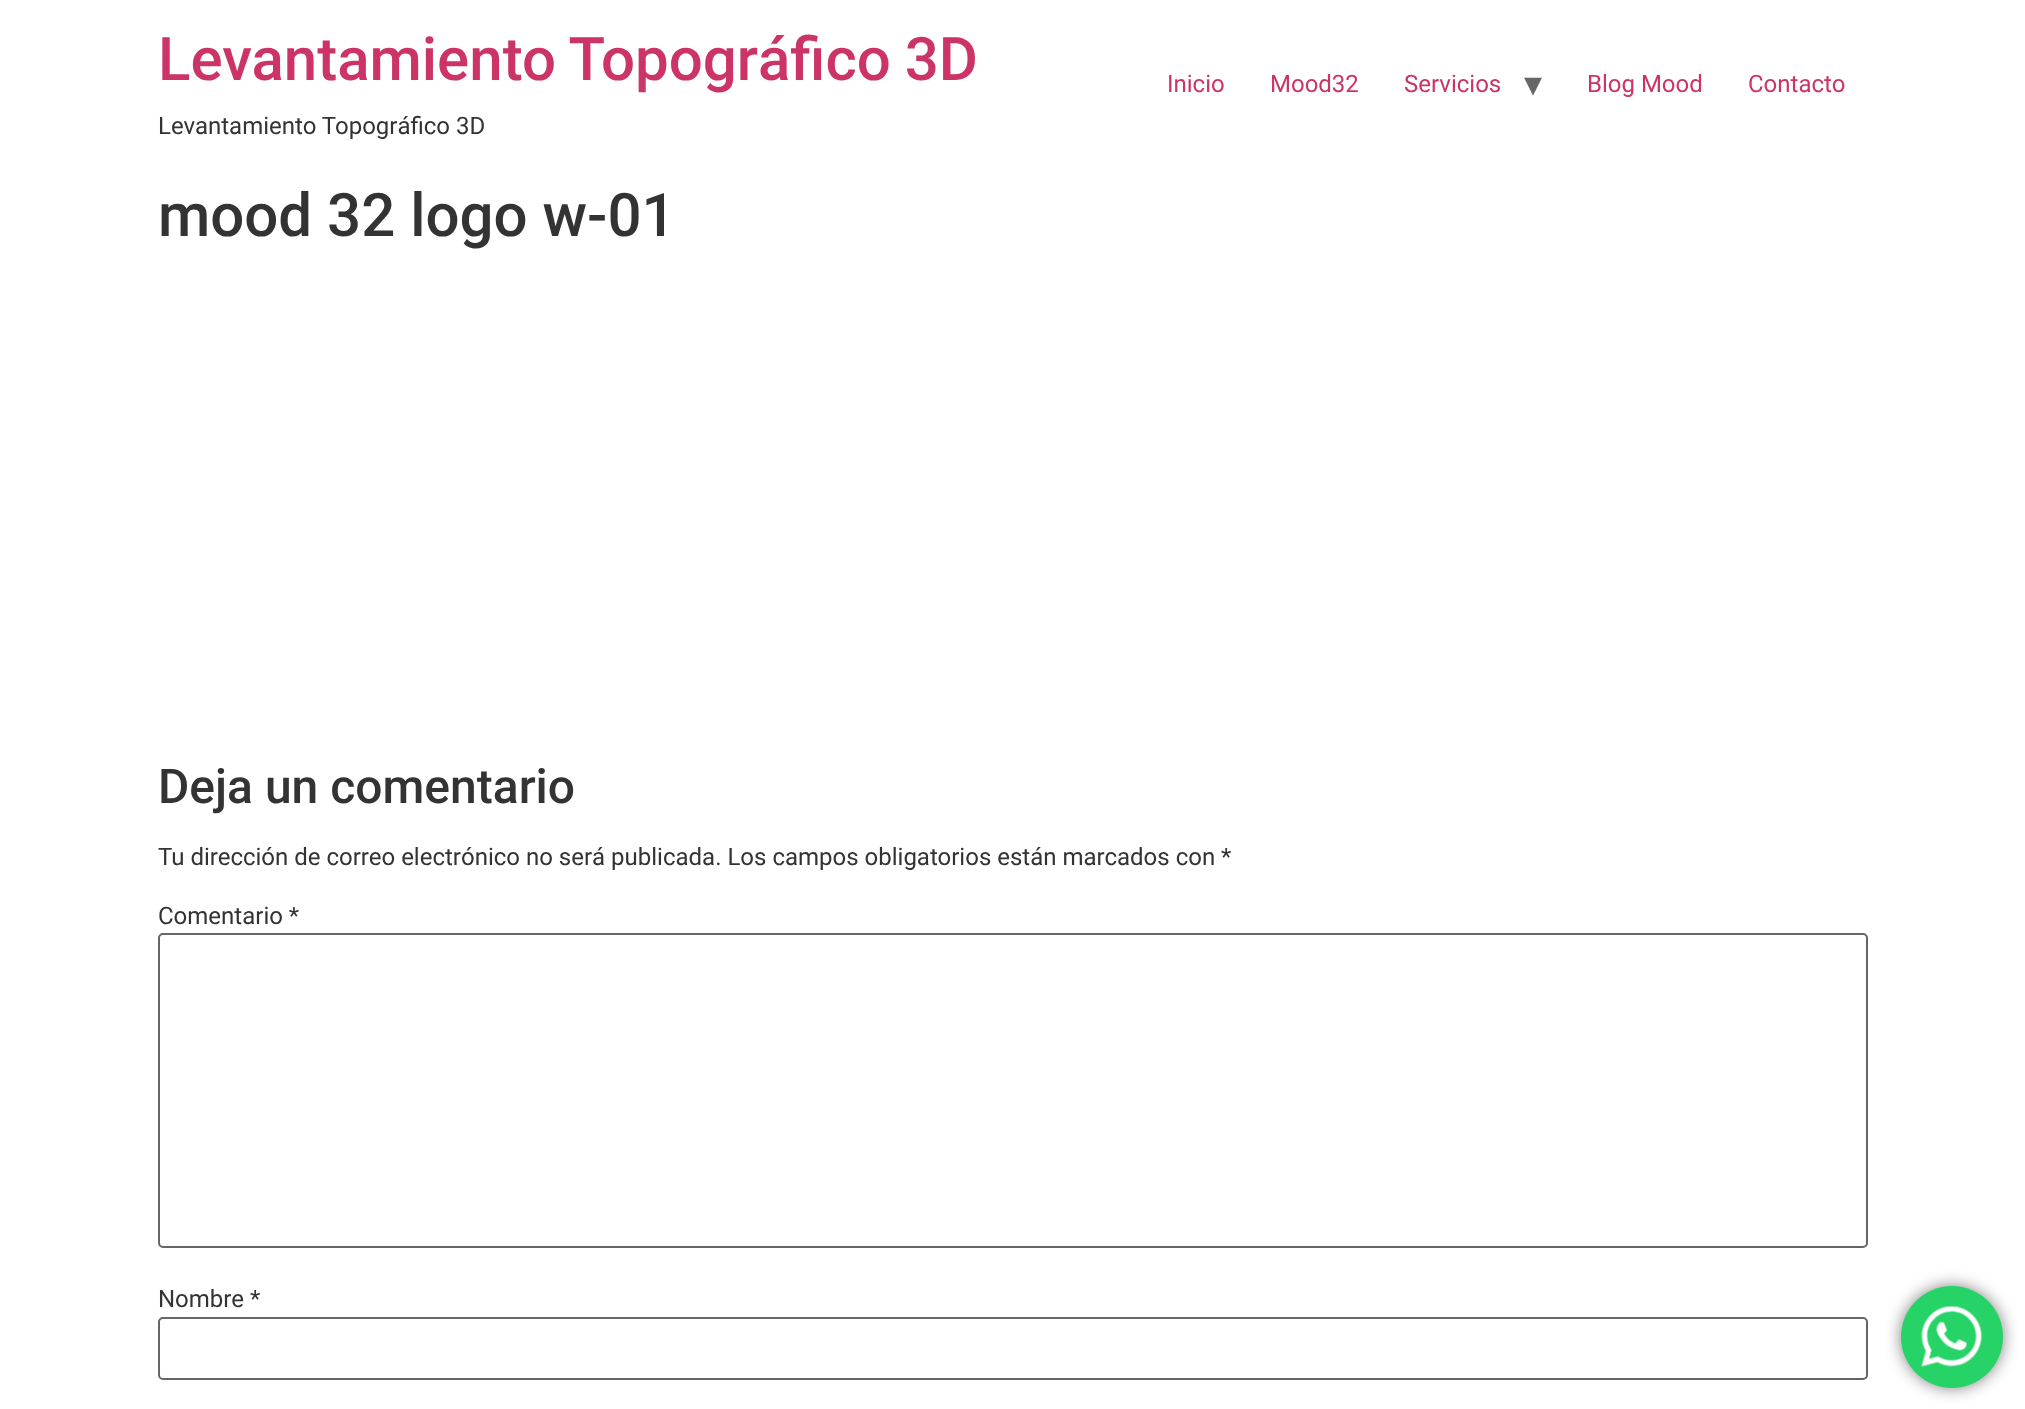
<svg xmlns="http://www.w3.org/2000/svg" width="2025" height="1409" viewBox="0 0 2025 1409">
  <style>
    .t1 { font: 500 60px Roboto; fill: #c36; }
    .t2 { font: 24px Roboto; fill: #333; }
    .t3 { font: 24px Roboto; fill: #c36; }
    .t4 { font: 36px DejaVu Sans; fill: #666; }
    .t5 { font: 500 60px Roboto; fill: #333; }
    .t6 { font: 500 48px Roboto; fill: #333; }
  </style>
  <rect width="100%" height="100%" fill="#fff"/>
  <text x="158" y="80" word-spacing="-1" class="t1">Levantamiento Topográfico 3D</text>
  <text x="158" y="134" class="t2">Levantamiento Topográfico 3D</text>
  <text x="1167" y="92" class="t3">Inicio</text>
  <text x="1270" y="92" class="t3">Mood32</text>
  <text x="1404" y="92" class="t3">Servicios</text>
  <text x="1524" y="96" class="t4">▾</text>
  <text x="1587" y="92" class="t3">Blog Mood</text>
  <text x="1748" y="92" class="t3">Contacto</text>
  <text x="158" y="236" class="t5">mood 32 logo w-01</text>
  <text x="158" y="803" class="t6">Deja un comentario</text>
  <text x="158" y="865" class="t2">Tu dirección de correo electrónico no será publicada. Los campos obligatorios están marcados con *</text>
  <text x="158" y="924" class="t2">Comentario *</text>
  <rect x="159" y="934" width="1708" height="313" rx="4" fill="none" stroke="#666" stroke-width="2"/>
  <text x="158" y="1307" class="t2">Nombre *</text>
  <rect x="159" y="1318" width="1708" height="61" rx="4" fill="none" stroke="#666" stroke-width="2"/>
  <rect x="1901" y="1286" width="102" height="102" rx="51" fill="#00000080" filter="blur(8px)"/>
  <circle cx="1952" cy="1337" r="51" fill="#25d366"/>
  <image x="1921" y="1306" width="61" height="61" href="images/1.png"/>
</svg>
